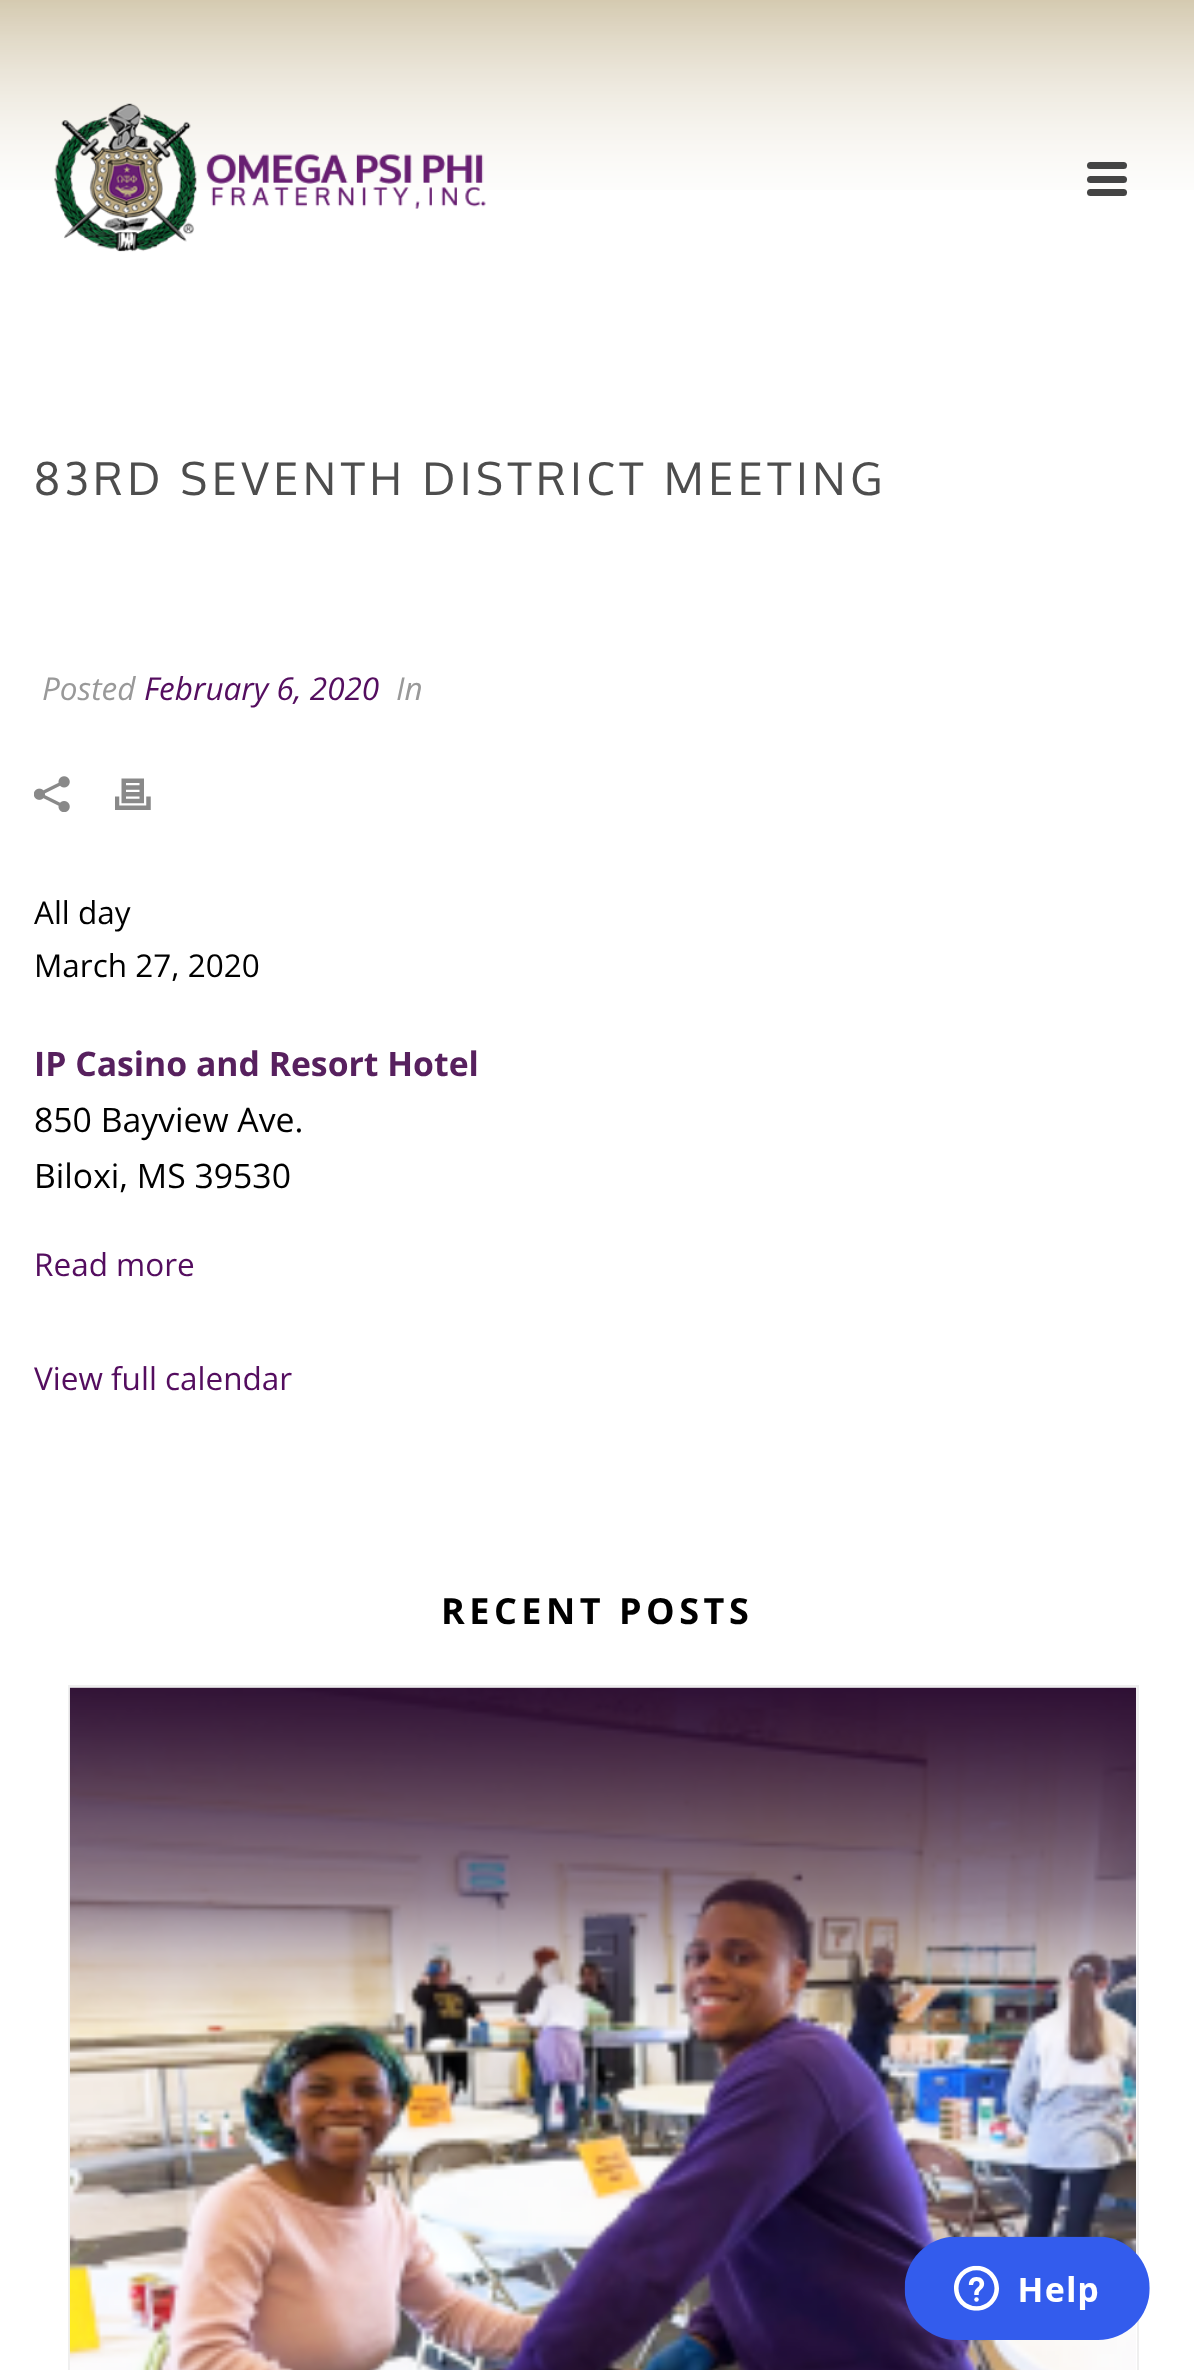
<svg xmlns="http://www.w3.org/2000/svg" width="1194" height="2370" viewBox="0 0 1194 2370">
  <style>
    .t1 { font: 45px Oxygen; letter-spacing: 4.5px; fill: #4d4d4d; }
    .t2 { font: italic 31.5px Open Sans; fill: #999; }
    .t3 { font: italic 31.5px Open Sans; fill: #540d5f; }
    .t4 { font: 31.5px Open Sans; fill: #000; }
    .t5 { font: bold 33.75px Open Sans; fill: #57205e; }
    .t6 { font: 33.75px Open Sans; fill: #000; }
    .t7 { font: 31.5px Open Sans; fill: #540d5f; }
    .t8 { font: bold 36px Open Sans; letter-spacing: 4.5px; fill: #000; }
  </style>
  <rect width="100%" height="100%" fill="#fff"/>
  <image x="0" y="0" width="1194" height="190" href="images/1.png"/>
  <image x="54" y="103" width="432" height="149" href="images/2.png"/>
  <rect x="1087" y="162" width="40" height="7" rx="3.5" fill="#444"/>
  <rect x="1087" y="176" width="40" height="7" rx="3.5" fill="#444"/>
  <rect x="1087" y="189" width="40" height="7" rx="3.5" fill="#444"/>
  <text x="34" y="495" class="t1">83RD SEVENTH DISTRICT MEETING</text>
  <text x="42" y="700" class="t2">Posted</text>
  <text x="144" y="700" class="t3">February 6, 2020</text>
  <text x="396" y="700" class="t2">In</text>
  <image x="34" y="776" width="36" height="36" href="images/3.png"/>
  <image x="115" y="778" width="36" height="32" href="images/4.png"/>
  <text x="34" y="924" class="t4">All day</text>
  <text x="34" y="977" class="t4">March 27, 2020</text>
  <text x="34" y="1076" class="t5">IP Casino and Resort Hotel</text>
  <text x="34" y="1132" class="t6">850 Bayview Ave.</text>
  <text x="34" y="1188" class="t6">Biloxi, MS 39530</text>
  <text x="34" y="1276" class="t7">Read more</text>
  <text x="34" y="1390" class="t7">View full calendar</text>
  <text x="441" y="1624" class="t8">RECENT POSTS</text>
  <rect x="69" y="1686" width="1069" height="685" fill="none" stroke="#efefef" stroke-width="2"/>
  <image x="69" y="1687" width="1068" height="683" href="images/5.png"/>
  <image x="904" y="2236" width="246" height="104" href="images/6.png"/>
</svg>
